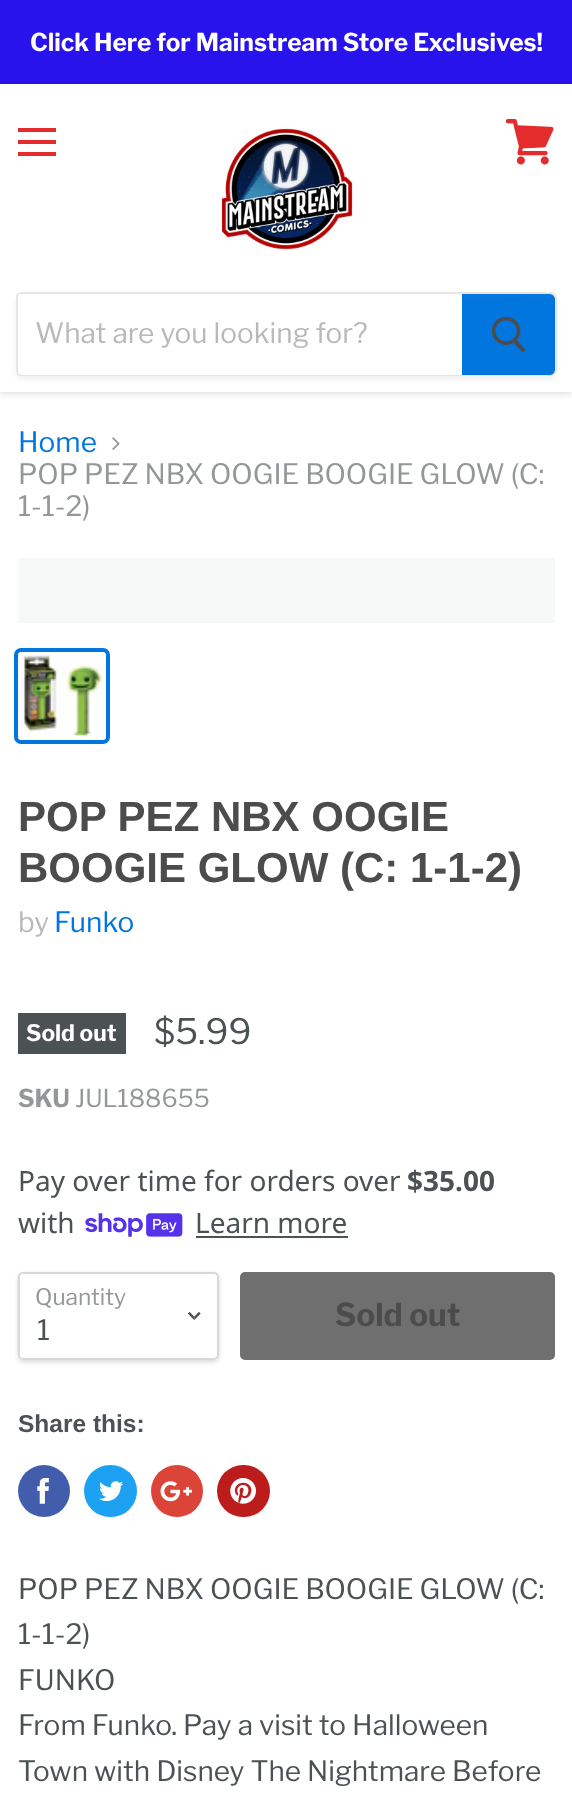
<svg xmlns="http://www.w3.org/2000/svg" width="572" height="1807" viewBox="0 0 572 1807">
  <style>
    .t1 { font: bold 24.5px Libre Franklin; fill: #fff; }
    .t2 { font: 28px Libre Franklin; fill: #b7b9bb; }
    .t3 { font: 28px Libre Franklin; fill: #0076de; }
    .t4 { font: 28px Libre Franklin; fill: #949798; }
    .t5 { font: bold 42px Arimo; fill: #4c4c4c; }
    .t6 { font: bold 22.75px Libre Franklin; fill: #fff; }
    .t7 { font: 35px Libre Franklin; fill: #4c5154; }
    .t8 { font: bold 24.5px Libre Franklin; fill: #949798; }
    .t9 { font: 24.5px Libre Franklin; fill: #949798; }
    .t10 { font: 28px Noto Sans; fill: #4c5154; }
    .t11 { font: bold 28px Noto Sans; fill: #4c5154; }
    .t12 { font: 22.75px Libre Franklin; fill: #949798; }
    .t13 { font: 28px Libre Franklin; fill: #4c5154; }
    .t14 { font: bold 31.5px Libre Franklin; fill: #4c4c4c; }
    .t15 { font: bold 24.5px Arimo; fill: #4c5154; }
  </style>
  <defs>
    <clipPath id="clip1"><rect x="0" y="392" width="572" height="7"/></clipPath>
    <clipPath id="clip2"><path d="M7 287H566V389H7ZM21 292H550C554 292 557 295 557 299V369C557 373 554 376 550 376H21C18 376 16 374 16 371V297C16 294 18 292 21 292Z" clip-rule="evenodd"/></clipPath>
    <clipPath id="clip3"><path d="M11 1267H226V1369H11ZM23 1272H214C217 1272 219 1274 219 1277V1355C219 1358 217 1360 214 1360H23C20 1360 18 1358 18 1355V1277C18 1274 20 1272 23 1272Z" clip-rule="evenodd"/></clipPath>
  </defs>
  <rect width="100%" height="100%" fill="#fff"/>
  <g clip-path="url(#clip1)">
    <rect x="0" y="2" width="572" height="392" fill="#7f7f7f40" filter="blur(3.5px)"/>
  </g>
  <rect x="0" y="0" width="572" height="84" fill="#2813ed"/>
  <text x="30" y="51" class="t1">Click Here for Mainstream Store Exclusives!</text>
  <rect x="18" y="128" width="38" height="4" fill="#e32c2b"/>
  <rect x="18" y="140" width="38" height="4" fill="#e32c2b"/>
  <rect x="18" y="152" width="38" height="4" fill="#e32c2b"/>
  <image x="506" y="119" width="48" height="46" href="images/1.png"/>
  <image x="221" y="124" width="135" height="127" href="images/2.png"/>
  <g clip-path="url(#clip2)">
    <rect x="16" y="296" width="541" height="84" rx="7" fill="#7f7f7f1c" filter="blur(2.5px)"/>
  </g>
  <path d="M21 293H550C553.5 293 556 295.5 556 299V369C556 372.5 553.5 375 550 375H21C19 375 17 373 17 371V297C17 295 19 293 21 293Z" fill="none" stroke="#7f7f7f33" stroke-width="2"/>
  <path d="M23 294H462V375H23C20 375 18 373 18 370V299C18 296 20 294 23 294Z" fill="#fff"/>
  <text x="35" y="343" class="t2">What are you looking for?</text>
  <path d="M463 295H550C552 295 554 297 554 299V370C554 372 552 374 550 374H463Z" fill="#0076de" stroke="#0076de" stroke-width="2"/>
  <image x="492" y="317" width="34" height="36" href="images/3.png"/>
  <text x="18" y="452" class="t3">Home</text>
  <image x="112" y="437" width="8" height="13" href="images/4.png"/>
  <text x="18" y="484" class="t4">POP PEZ NBX OOGIE BOOGIE GLOW (C:</text>
  <text x="18" y="516" class="t4">1-1-2)</text>
  <rect x="18" y="558" width="537" height="65" fill="#f7f8f8"/>
  <rect x="16" y="650" width="92" height="92" rx="5" fill="none" stroke="#0076de" stroke-width="4"/>
  <image x="21" y="654" width="82" height="83" href="images/5.png"/>
  <text x="18" y="831" class="t5">POP PEZ NBX OOGIE</text>
  <text x="18" y="882" class="t5">BOOGIE GLOW (C: 1-1-2)</text>
  <text x="18" y="932" class="t2">by</text>
  <text x="54" y="932" class="t3">Funko</text>
  <rect x="18" y="1013" width="108" height="41" fill="#4c5154"/>
  <text x="26" y="1041" class="t6">Sold out</text>
  <text x="154" y="1044" class="t7">$5.99</text>
  <text x="18" y="1107" class="t8">SKU</text>
  <text x="75" y="1107" class="t9">JUL188655</text>
  <text x="18" y="1191" class="t10">Pay over time for orders over</text>
  <text x="407" y="1191" class="t11">$35.00</text>
  <text x="18" y="1233" class="t10">with</text>
  <image x="85" y="1213" width="98" height="24" href="images/6.png"/>
  <text x="195" y="1233" class="t10">Learn more</text>
  <rect x="196" y="1236" width="152" height="2" fill="#4c5154"/>
  <g clip-path="url(#clip3)">
    <rect x="18" y="1274" width="201" height="88" rx="5" fill="#00000026" filter="blur(2px)"/>
  </g>
  <rect x="19" y="1273" width="199" height="86" rx="4" fill="none" stroke="#7f7f7f4d" stroke-width="2"/>
  <text x="35" y="1305" class="t12">Quantity</text>
  <image x="187" y="1311" width="14" height="10" href="images/7.png"/>
  <text x="37" y="1340" class="t13">1</text>
  <rect x="241" y="1273" width="313" height="86" rx="4" fill="#6f6f6f" stroke="#6f6f6f" stroke-width="2"/>
  <text x="335" y="1326" class="t14">Sold out</text>
  <text x="18" y="1432" class="t15">Share this:</text>
  <circle cx="44" cy="1491" r="26" fill="#425dab"/>
  <image x="37" y="1478" width="12" height="26" href="images/8.png"/>
  <rect x="84" y="1465" width="53" height="52" rx="26" fill="#1da1f2"/>
  <image x="99" y="1481" width="25" height="20" href="images/9.png"/>
  <circle cx="177" cy="1491" r="26" fill="#db4437"/>
  <image x="160" y="1481" width="32" height="21" href="images/10.png"/>
  <rect x="217" y="1465" width="53" height="52" rx="26" fill="#bd1c1c"/>
  <image x="230" y="1478" width="26" height="26" href="images/11.png"/>
  <text x="18" y="1599" class="t13">POP PEZ NBX OOGIE BOOGIE GLOW (C:</text>
  <text x="18" y="1644" class="t13">1-1-2)</text>
  <text x="18" y="1690" class="t13">FUNKO</text>
  <text x="18" y="1735" class="t13">From Funko. Pay a visit to Halloween</text>
  <text x="18" y="1781" class="t13">Town with Disney The Nightmare Before</text>
</svg>
